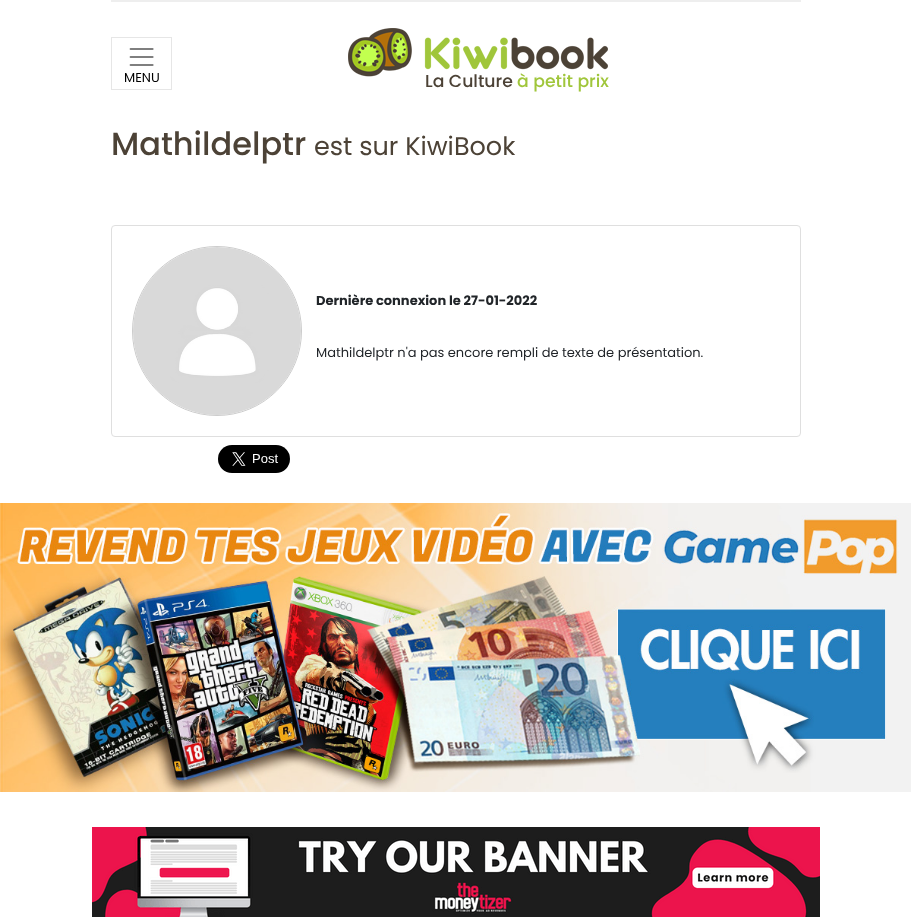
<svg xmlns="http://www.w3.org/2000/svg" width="911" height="917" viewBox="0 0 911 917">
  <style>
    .t1 { font: 13px Poppins; fill: #000; }
    .t2 { font: 500 17.25px Poppins; fill: #4c4236; }
    .t3 { font: 500 17.25px Poppins; fill: #a0c63b; }
    .t4 { font: 500 32px Poppins; fill: #4c4236; }
    .t5 { font: 25.5px Poppins; fill: #4c4236; }
    .t6 { font: bold 13px Poppins; fill: #212529; }
    .t7 { font: 13px Poppins; fill: #212529; }
  </style>
  <rect width="100%" height="100%" fill="#fff"/>
  <rect x="111" y="0" width="690" height="2" fill="#eee"/>
  <rect x="111.5" y="37.5" width="60" height="52" fill="none" stroke="#e6e6e6"/>
  <image x="129" y="48" width="25" height="18" href="images/1.png"/>
  <text x="124" y="82" class="t1">MENU</text>
  <image x="348" y="28" width="260" height="49" href="images/2.png"/>
  <text x="425" y="87" class="t2">La Culture</text>
  <text x="517" y="87" class="t3">à petit prix</text>
  <text x="111" y="155" class="t4">Mathildelptr</text>
  <text x="314" y="155" class="t5">est sur KiwiBook</text>
  <rect x="111.5" y="225.5" width="689" height="211" rx="3.5" fill="none" stroke="#dfdfdf"/>
  <circle cx="217" cy="331" r="84.5" fill="none" stroke="#ccc"/>
  <image x="133" y="247" width="168" height="168" href="images/3.png"/>
  <text x="316" y="305" class="t6">Dernière connexion le 27-01-2022</text>
  <text x="316" y="357" class="t7">Mathildelptr n'a pas encore rempli de texte de présentation.</text>
  <image x="218" y="445" width="72" height="28" href="images/4.png"/>
  <image x="0" y="503" width="911" height="289" href="images/5.png"/>
  <image x="92" y="827" width="728" height="90" href="images/6.png"/>
</svg>
